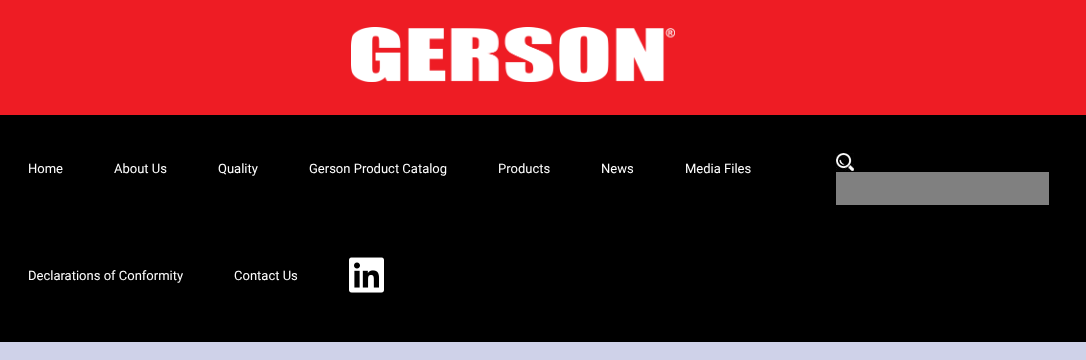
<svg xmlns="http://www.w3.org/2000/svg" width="1086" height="360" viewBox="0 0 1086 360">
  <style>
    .t1 { font: 13px Roboto; fill: #fff; }
  </style>
  <rect width="100%" height="100%" fill="#000"/>
  <rect x="0" y="0" width="1086" height="115" fill="#ee1c24"/>
  <image x="351" y="27" width="324" height="55" href="images/1.png"/>
  <text x="28" y="173" class="t1">Home</text>
  <text x="114" y="173" class="t1">About Us</text>
  <text x="218" y="173" class="t1">Quality</text>
  <text x="309" y="173" class="t1">Gerson Product Catalog</text>
  <text x="498" y="173" class="t1">Products</text>
  <text x="601" y="173" class="t1">News</text>
  <text x="685" y="173" class="t1">Media Files</text>
  <text x="28" y="280" class="t1">Declarations of Conformity</text>
  <text x="234" y="280" class="t1">Contact Us</text>
  <image x="349" y="257" width="35" height="36" href="images/2.png"/>
  <image x="836" y="153" width="18" height="18" href="images/3.png"/>
  <rect x="836" y="172" width="213" height="33" fill="#808080"/>
  <rect x="0" y="342" width="1086" height="18" fill="#cfd2e9"/>
</svg>
